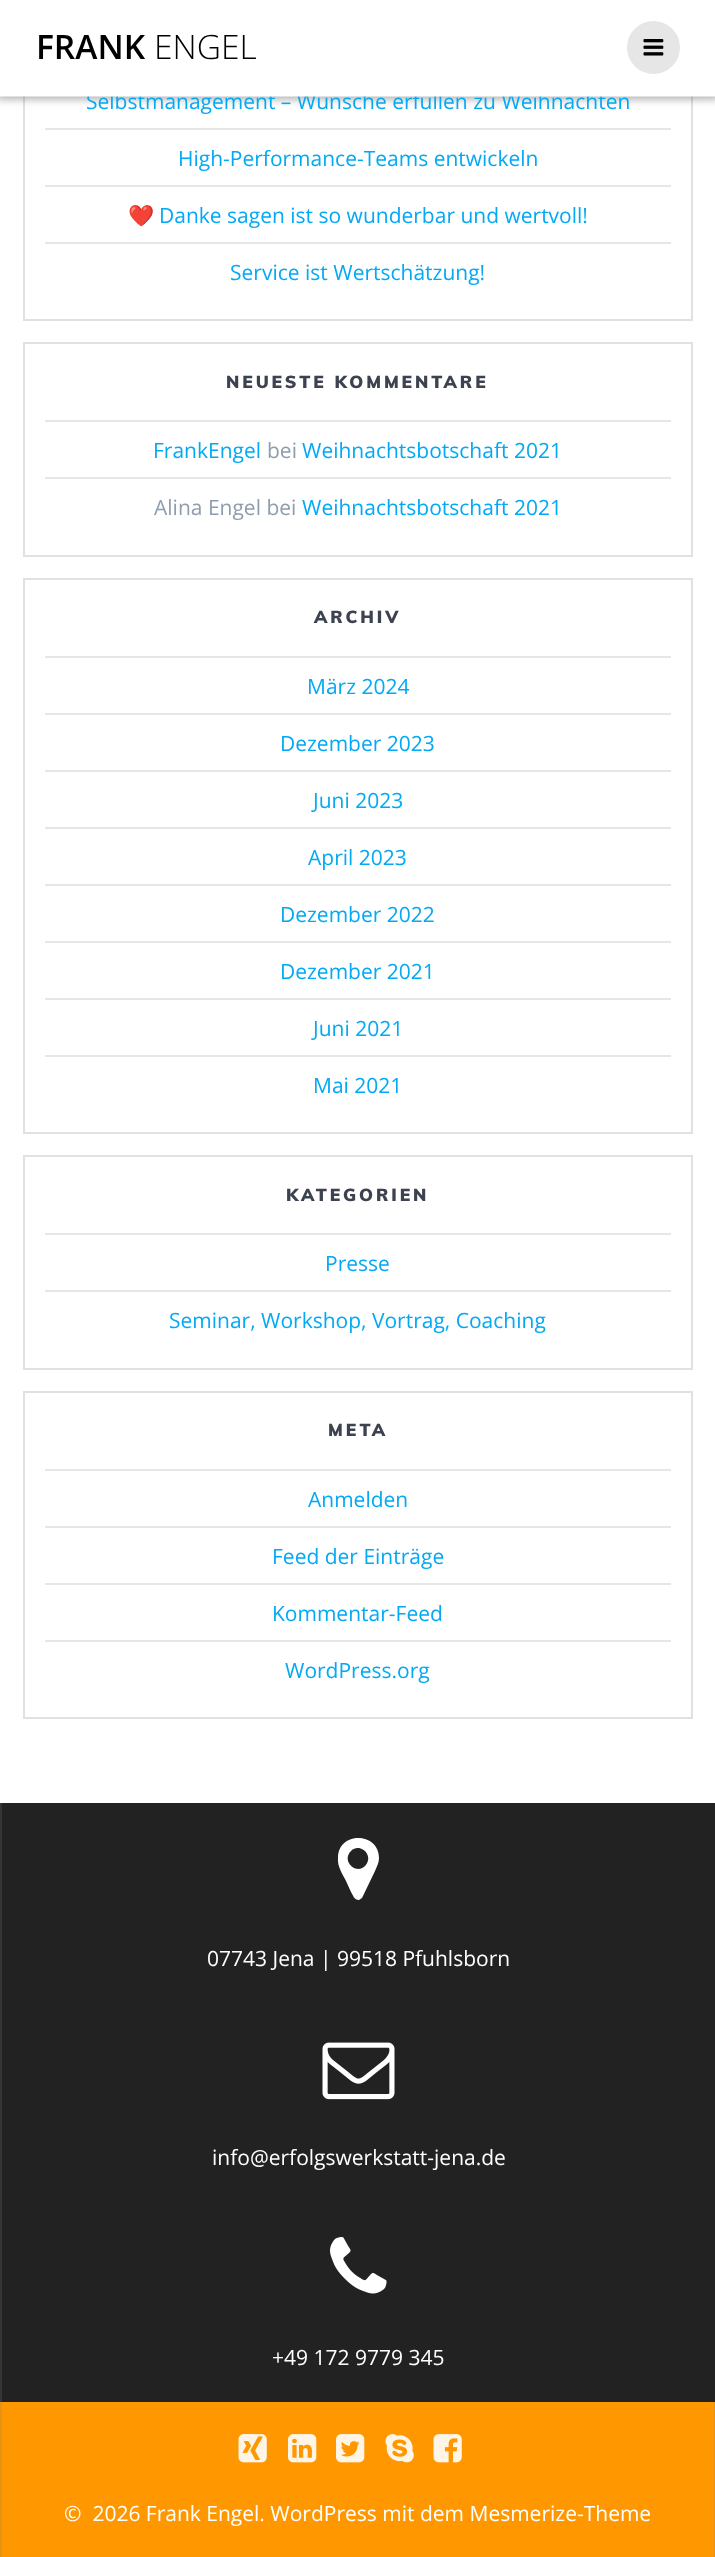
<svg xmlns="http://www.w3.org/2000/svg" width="715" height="2557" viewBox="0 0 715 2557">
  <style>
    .t1 { font: 21px Open Sans; fill: #03a9f4; }
    .t2 { font: 600 33.5px Open Sans; fill: #000; }
    .t3 { font: 300 33.5px Open Sans; fill: #000; }
    .t4 { font: 21px Noto Color Emoji; fill: #03a9f4; }
    .t5 { font: 900 17.4px Muli; letter-spacing: 2.9px; fill: #3c424f; }
    .t6 { font: 21px Open Sans; fill: #8e9dae; }
    .t7 { font: 21px Open Sans; fill: #fff; }
  </style>
  <rect width="100%" height="100%" fill="#fff"/>
  <rect x="24" y="-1" width="668" height="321" fill="none" stroke="#e0e1e1" stroke-width="2"/>
  <rect x="-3" y="-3" width="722" height="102" fill="#00000054" filter="blur(4px)"/>
  <text x="86" y="109" class="t1">Selbstmanagement – Wünsche erfüllen zu Weihnachten</text>
  <rect x="0" y="0" width="715" height="96" fill="#fff"/>
  <rect x="0" y="96" width="715" height="1" fill="#ffffff82"/>
  <text x="36" y="59" class="t2">FRANK</text>
  <text x="154" y="59" class="t3">ENGEL</text>
  <circle cx="653.5" cy="47.5" r="26.5" fill="#e6e6e6"/>
  <image x="643" y="39" width="21" height="17" href="images/1.png"/>
  <rect x="45" y="128" width="626" height="2" fill="#e6e6e6"/>
  <text x="178" y="166" class="t1">High-Performance-Teams entwickeln</text>
  <rect x="45" y="185" width="626" height="2" fill="#e6e6e6"/>
  <text x="128" y="223" class="t4">❤️</text>
  <text x="159" y="223" class="t1">Danke sagen ist so wunderbar und wertvoll!</text>
  <rect x="45" y="242" width="626" height="2" fill="#e6e6e6"/>
  <text x="230" y="280" class="t1">Service ist Wertschätzung!</text>
  <rect x="24" y="343" width="668" height="213" fill="none" stroke="#e0e1e1" stroke-width="2"/>
  <text x="226" y="388" class="t5">NEUESTE KOMMENTARE</text>
  <rect x="45" y="420" width="626" height="2" fill="#e6e6e6"/>
  <text x="153" y="458" class="t1">FrankEngel</text>
  <text x="267" y="458" class="t6">bei</text>
  <text x="302" y="458" class="t1">Weihnachtsbotschaft 2021</text>
  <rect x="45" y="477" width="626" height="2" fill="#e6e6e6"/>
  <text x="154" y="515" class="t6">Alina Engel bei</text>
  <text x="302" y="515" class="t1">Weihnachtsbotschaft 2021</text>
  <rect x="24" y="579" width="668" height="554" fill="none" stroke="#e0e1e1" stroke-width="2"/>
  <text x="314" y="623" class="t5">ARCHIV</text>
  <rect x="45" y="656" width="626" height="2" fill="#e6e6e6"/>
  <text x="307" y="694" class="t1">März 2024</text>
  <rect x="45" y="713" width="626" height="2" fill="#e6e6e6"/>
  <text x="280" y="751" class="t1">Dezember 2023</text>
  <rect x="45" y="770" width="626" height="2" fill="#e6e6e6"/>
  <text x="313" y="808" class="t1">Juni 2023</text>
  <rect x="45" y="827" width="626" height="2" fill="#e6e6e6"/>
  <text x="308" y="865" class="t1">April 2023</text>
  <rect x="45" y="884" width="626" height="2" fill="#e6e6e6"/>
  <text x="280" y="922" class="t1">Dezember 2022</text>
  <rect x="45" y="941" width="626" height="2" fill="#e6e6e6"/>
  <text x="280" y="979" class="t1">Dezember 2021</text>
  <rect x="45" y="998" width="626" height="2" fill="#e6e6e6"/>
  <text x="313" y="1036" class="t1">Juni 2021</text>
  <rect x="45" y="1055" width="626" height="2" fill="#e6e6e6"/>
  <text x="313" y="1093" class="t1">Mai 2021</text>
  <rect x="24" y="1156" width="668" height="213" fill="none" stroke="#e0e1e1" stroke-width="2"/>
  <text x="286" y="1201" class="t5">KATEGORIEN</text>
  <rect x="45" y="1233" width="626" height="2" fill="#e6e6e6"/>
  <text x="325" y="1271" class="t1">Presse</text>
  <rect x="45" y="1290" width="626" height="2" fill="#e6e6e6"/>
  <text x="169" y="1328" class="t1">Seminar, Workshop, Vortrag, Coaching</text>
  <rect x="24" y="1392" width="668" height="326" fill="none" stroke="#e0e1e1" stroke-width="2"/>
  <text x="328" y="1436" class="t5">META</text>
  <rect x="45" y="1469" width="626" height="2" fill="#e6e6e6"/>
  <text x="308" y="1507" class="t1">Anmelden</text>
  <rect x="45" y="1526" width="626" height="2" fill="#e6e6e6"/>
  <text x="272" y="1564" class="t1">Feed der Einträge</text>
  <rect x="45" y="1583" width="626" height="2" fill="#e6e6e6"/>
  <text x="272" y="1621" class="t1">Kommentar-Feed</text>
  <rect x="45" y="1640" width="626" height="2" fill="#e6e6e6"/>
  <text x="285" y="1678" class="t1">WordPress.org</text>
  <rect x="2" y="1803" width="713" height="599" fill="#222"/>
  <rect x="0" y="1803" width="2" height="599" fill="#353535"/>
  <path d="M365 1866C375 1856 360 1842 351 1851C341 1861 356 1875 365 1866ZM379 1858C379 1863 377 1866 375 1871L362 1898C361 1899 360 1899 359 1900C354 1900 353 1895 351 1892L346 1881C343 1875 337 1866 338 1858C338 1831 379 1832 379 1858Z" fill="#fff"/>
  <text x="207" y="1966" class="t7">07743 Jena | 99518 Pfuhlsborn</text>
  <image x="322" y="2042" width="73" height="58" href="images/2.png"/>
  <text x="212" y="2165" class="t7">info@erfolgswerkstatt-jena.de</text>
  <image x="330" y="2236" width="57" height="58" href="images/3.png"/>
  <text x="272" y="2365" class="t7">+49 172 9779 345</text>
  <rect x="2" y="2402" width="712" height="155" fill="#ff9800"/>
  <rect x="714" y="2402" width="1" height="155" fill="#e6931a"/>
  <rect x="0" y="2402" width="2" height="155" fill="#e6931a"/>
  <image x="238" y="2434" width="29" height="29" href="images/4.png"/>
  <image x="288" y="2434" width="29" height="29" href="images/5.png"/>
  <image x="336" y="2434" width="29" height="29" href="images/6.png"/>
  <image x="385" y="2434" width="29" height="29" href="images/7.png"/>
  <image x="433" y="2434" width="29" height="29" href="images/8.png"/>
  <text x="64" y="2521" class="t7" xml:space="preserve">©  2026 Frank Engel. WordPress mit dem Mesmerize-Theme</text>
</svg>
